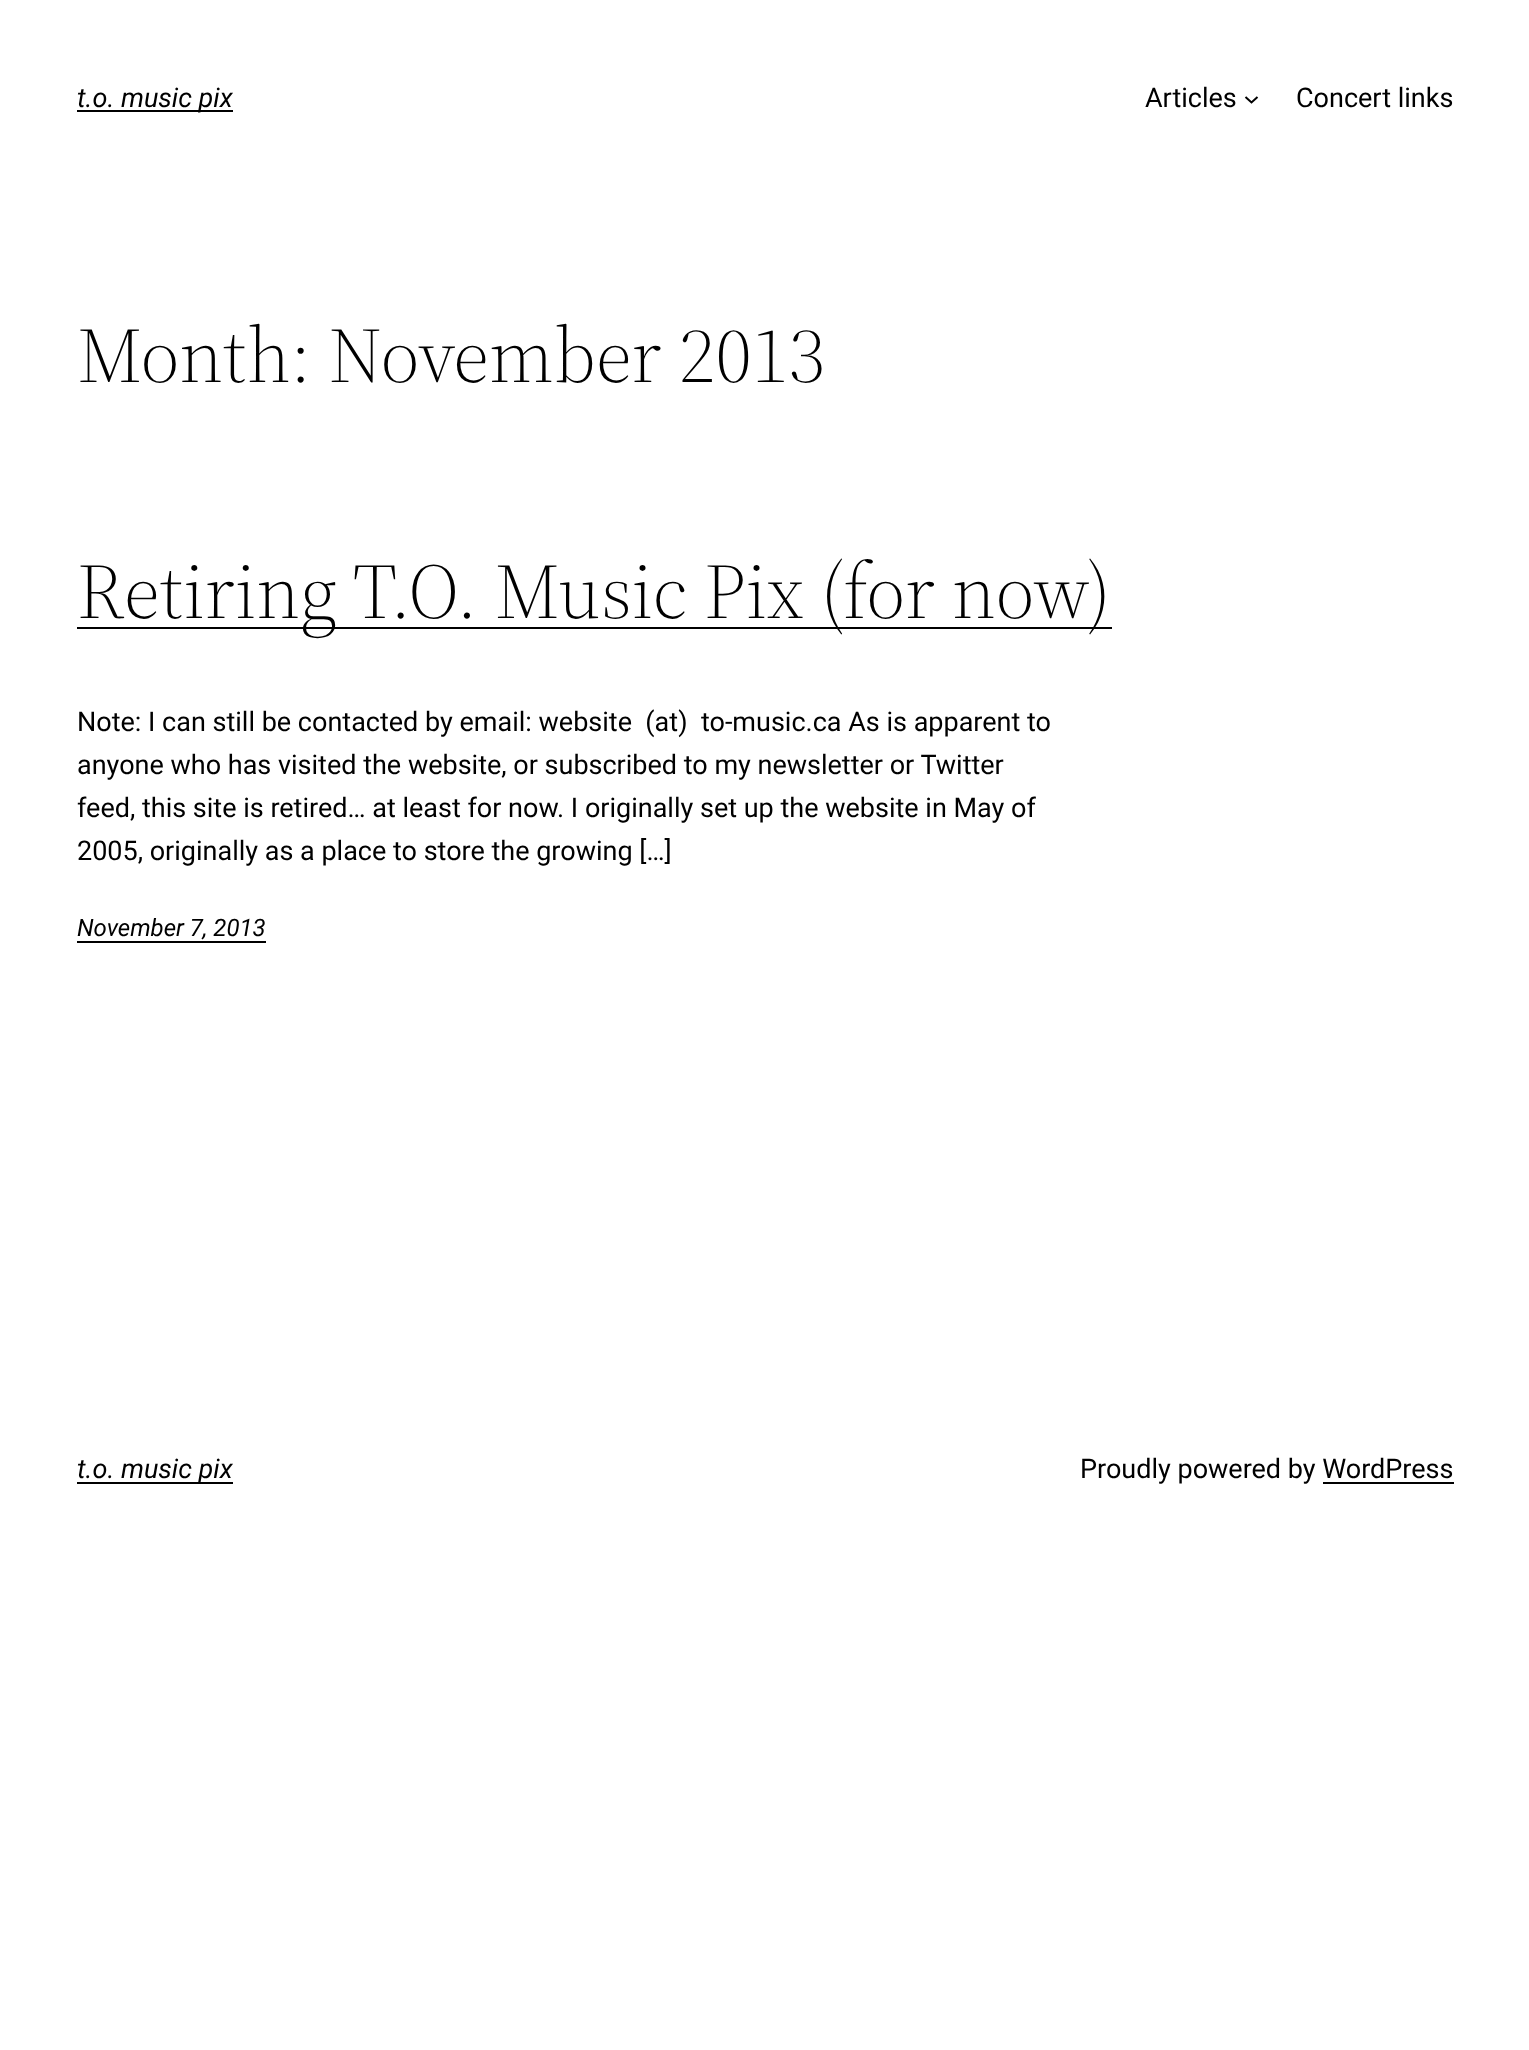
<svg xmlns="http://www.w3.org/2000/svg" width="1529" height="2050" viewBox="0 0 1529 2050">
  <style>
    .t1 { font: italic 27px Roboto; fill: #000; }
    .t2 { font: 27px Roboto; fill: #000; }
    .t3 { font: 300 78px 'Source Serif 4'; fill: #000; }
    .t4 { font: italic 24px Roboto; fill: #000; }
  </style>
  <rect width="100%" height="100%" fill="#fff"/>
  <rect x="77" y="110" width="156" height="2" fill="#000"/>
  <text x="77" y="107" class="t1">t.o. music pix</text>
  <text x="1145" y="107" class="t2">Articles</text>
  <path d="M1245.5 97L1251.5 102.5L1257.5 97" fill="none" stroke="#000" stroke-width="2"/>
  <text x="1296" y="107" class="t2">Concert links</text>
  <text x="77" y="382" class="t3">Month: November 2013</text>
  <rect x="77" y="627" width="1035" height="2" fill="#000"/>
  <text x="77" y="618" class="t3">Retiring T.O. Music Pix (for now)</text>
  <text x="77" y="731" class="t2" xml:space="preserve">Note: I can still be contacted by email: website  (at)  to-music.ca As is apparent to</text>
  <text x="77" y="774" class="t2">anyone who has visited the website, or subscribed to my newsletter or Twitter</text>
  <text x="77" y="817" class="t2">feed, this site is retired… at least for now. I originally set up the website in May of</text>
  <text x="77" y="860" class="t2">2005, originally as a place to store the growing […]</text>
  <text x="77" y="936" class="t4">November 7, 2013</text>
  <rect x="77" y="941" width="189" height="2" fill="#000"/>
  <rect x="77" y="1482" width="156" height="2" fill="#000"/>
  <text x="77" y="1478" class="t1">t.o. music pix</text>
  <text x="1080" y="1478" class="t2">Proudly powered by WordPress</text>
  <rect x="1323" y="1482" width="131" height="2" fill="#000"/>
</svg>
